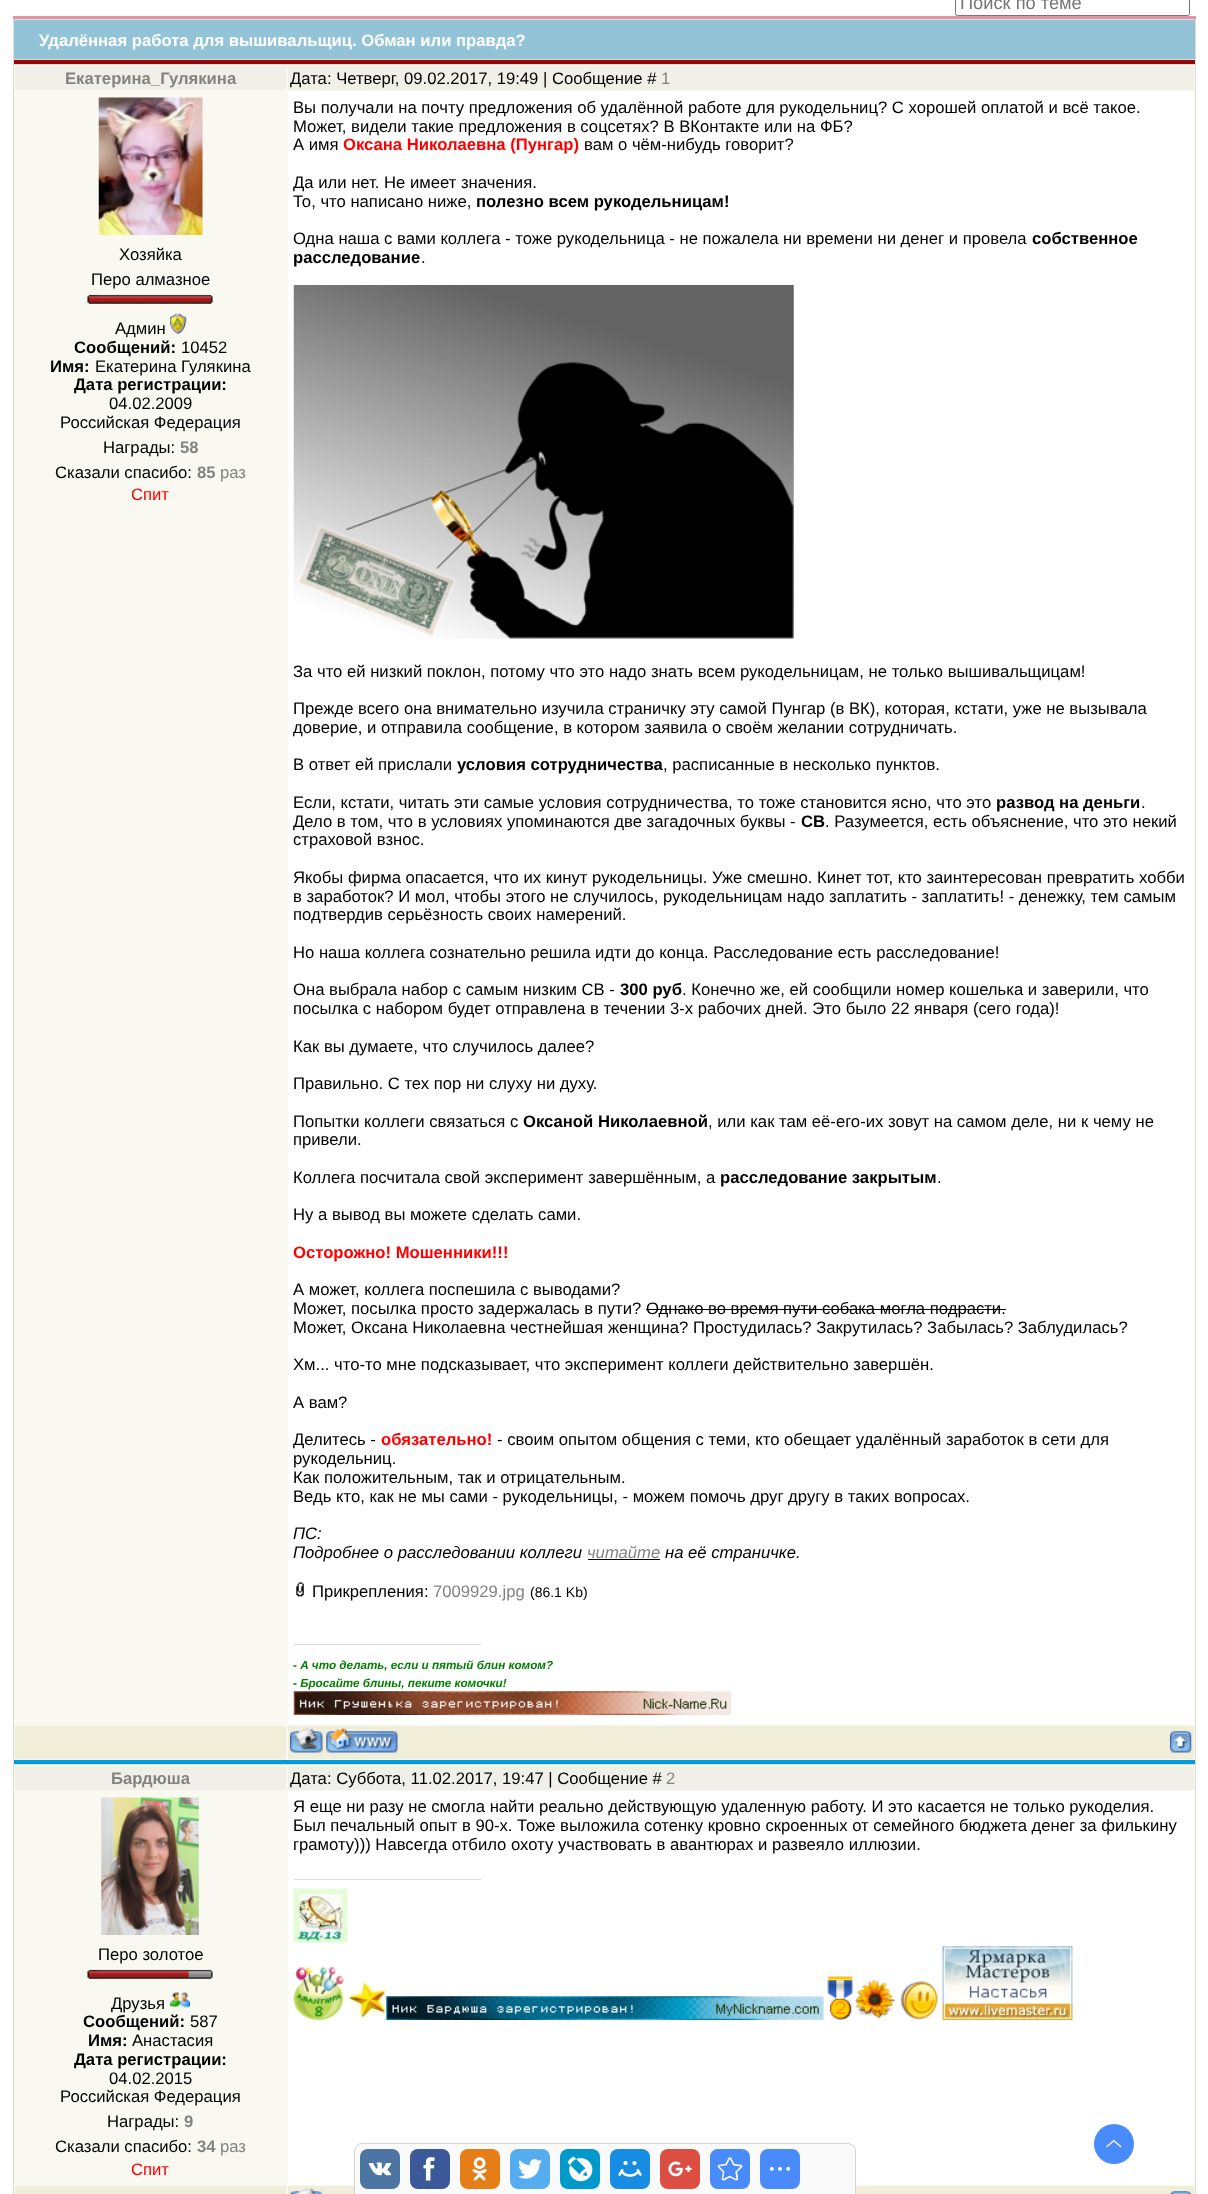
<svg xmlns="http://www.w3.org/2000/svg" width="1208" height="2194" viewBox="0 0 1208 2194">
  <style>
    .t1 { font: 18.25px Liberation Sans; fill: #757575; }
    .t2 { font: bold 16.67px Liberation Sans; fill: #fff; }
    .t3 { font: bold 16.67px Liberation Sans; fill: #838383; }
    .t4 { font: 16.67px Liberation Sans; fill: #000; }
    .t5 { font: 16.67px Liberation Sans; fill: #838383; }
    .t6 { font: bold 16.67px Liberation Sans; fill: #000; }
    .t7 { font: 16.67px Liberation Sans; fill: #f00; }
    .t8 { font: bold 16.67px Liberation Sans; fill: #f00; }
    .t9 { font: italic 16.67px Liberation Sans; fill: #000; }
    .t10 { font: italic 16.67px Liberation Sans; fill: #838383; }
    .t11 { font: 14px Liberation Sans; fill: #000; }
    .t12 { font: italic bold 11.7px Liberation Sans; fill: #008000; }
  </style>
  <rect width="100%" height="100%" fill="#fff"/>
  <rect x="955.5" y="-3.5" width="234" height="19" rx="2" fill="none" stroke="#767676"/>
  <text x="960" y="9" class="t1">Поиск по теме</text>
  <rect x="13" y="19" width="1183" height="2175" fill="#dcdbd4"/>
  <rect x="13" y="16" width="1183" height="3" fill="#e492aa"/>
  <rect x="14" y="20" width="1181" height="39" fill="#93c3d7"/>
  <text x="39" y="46" class="t2">Удалённая работа для вышивальщиц. Обман или правда?</text>
  <rect x="14" y="60" width="1181" height="4" fill="#93070a"/>
  <rect x="14" y="65" width="1181" height="1695" fill="#faf9f1"/>
  <rect x="14" y="1760" width="1181" height="4" fill="#009cda"/>
  <rect x="15" y="66" width="271" height="24" fill="#f1f0e8"/>
  <text x="65" y="84" class="t3">Екатерина_Гулякина</text>
  <rect x="288" y="66" width="906" height="24" fill="#f1f0e8"/>
  <text x="290" y="84" class="t4">Дата: Четверг, 09.02.2017, 19:49 | Сообщение #</text>
  <text x="661" y="84" class="t5">1</text>
  <image x="98" y="97" width="105" height="138" href="images/1.png"/>
  <text x="119" y="260" class="t4">Хозяйка</text>
  <text x="91" y="285" class="t4">Перо алмазное</text>
  <image x="87" y="294" width="126" height="10" href="images/2.png"/>
  <text x="115" y="334" class="t4">Админ</text>
  <image x="170" y="313" width="17" height="21" href="images/3.png"/>
  <text x="74" y="353" class="t6">Сообщений:</text>
  <text x="181" y="353" class="t4">10452</text>
  <text x="50" y="372" class="t6">Имя:</text>
  <text x="95" y="372" class="t4">Екатерина Гулякина</text>
  <text x="74" y="390" class="t6">Дата регистрации:</text>
  <text x="109" y="409" class="t4">04.02.2009</text>
  <text x="60" y="428" class="t4">Российская Федерация</text>
  <text x="103" y="453" class="t4">Награды:</text>
  <text x="180" y="453" class="t3">58</text>
  <text x="55" y="478" class="t4">Сказали спасибо:</text>
  <text x="197" y="478" class="t3">85</text>
  <text x="220" y="478" class="t5">раз</text>
  <text x="131" y="500" class="t7">Спит</text>
  <rect x="288" y="91" width="906" height="1634" fill="#fff"/>
  <text x="293" y="113" class="t4">Вы получали на почту предложения об удалённой работе для рукодельниц? С хорошей оплатой и всё такое.</text>
  <text x="293" y="132" class="t4">Может, видели такие предложения в соцсетях? В ВКонтакте или на ФБ?</text>
  <text x="293" y="150" class="t4">А имя</text>
  <text x="343" y="150" class="t8">Оксана Николаевна (Пунгар)</text>
  <text x="584" y="150" class="t4">вам о чём-нибудь говорит?</text>
  <text x="293" y="188" class="t4">Да или нет. Не имеет значения.</text>
  <text x="293" y="207" class="t4">То, что написано ниже,</text>
  <text x="476" y="207" class="t6">полезно всем рукодельницам!</text>
  <text x="293" y="244" class="t4">Одна наша с вами коллега - тоже рукодельница - не пожалела ни времени ни денег и провела</text>
  <text x="1032" y="244" class="t6">собственное</text>
  <text x="293" y="263" class="t6">расследование</text>
  <text x="421" y="263" class="t4">.</text>
  <image x="293" y="285" width="501" height="354" href="images/4.png"/>
  <text x="293" y="677" class="t4">За что ей низкий поклон, потому что это надо знать всем рукодельницам, не только вышивальщицам!</text>
  <text x="293" y="714" class="t4">Прежде всего она внимательно изучила страничку эту самой Пунгар (в ВК), которая, кстати, уже не вызывала</text>
  <text x="293" y="733" class="t4">доверие, и отправила сообщение, в котором заявила о своём желании сотрудничать.</text>
  <text x="293" y="770" class="t4">В ответ ей прислали</text>
  <text x="457" y="770" class="t6">условия сотрудничества</text>
  <text x="663" y="770" class="t4">, расписанные в несколько пунктов.</text>
  <text x="293" y="808" class="t4">Если, кстати, читать эти самые условия сотрудничества, то тоже становится ясно, что это</text>
  <text x="996" y="808" class="t6">развод на деньги</text>
  <text x="1141" y="808" class="t4">.</text>
  <text x="293" y="827" class="t4">Дело в том, что в условиях упоминаются две загадочных буквы -</text>
  <text x="801" y="827" class="t6">СВ</text>
  <text x="825" y="827" class="t4">. Разумеется, есть объяснение, что это некий</text>
  <text x="293" y="845" class="t4">страховой взнос.</text>
  <text x="293" y="883" class="t4">Якобы фирма опасается, что их кинут рукодельницы. Уже смешно. Кинет тот, кто заинтересован превратить хобби</text>
  <text x="293" y="902" class="t4">в заработок? И мол, чтобы этого не случилось, рукодельницам надо заплатить - заплатить! - денежку, тем самым</text>
  <text x="293" y="920" class="t4">подтвердив серьёзность своих намерений.</text>
  <text x="293" y="958" class="t4">Но наша коллега сознательно решила идти до конца. Расследование есть расследование!</text>
  <text x="293" y="995" class="t4">Она выбрала набор с самым низким СВ -</text>
  <text x="620" y="995" class="t6">300 руб</text>
  <text x="682" y="995" class="t4">. Конечно же, ей сообщили номер кошелька и заверили, что</text>
  <text x="293" y="1014" class="t4">посылка с набором будет отправлена в течении 3-х рабочих дней. Это было 22 января (сего года)!</text>
  <text x="293" y="1052" class="t4">Как вы думаете, что случилось далее?</text>
  <text x="293" y="1089" class="t4">Правильно. С тех пор ни слуху ни духу.</text>
  <text x="293" y="1127" class="t4">Попытки коллеги связаться с</text>
  <text x="523" y="1127" class="t6">Оксаной Николаевной</text>
  <text x="708" y="1127" class="t4">, или как там её-его-их зовут на самом деле, ни к чему не</text>
  <text x="293" y="1145" class="t4">привели.</text>
  <text x="293" y="1183" class="t4">Коллега посчитала свой эксперимент завершённым, а</text>
  <text x="720" y="1183" class="t6">расследование закрытым</text>
  <text x="937" y="1183" class="t4">.</text>
  <text x="293" y="1220" class="t4">Ну а вывод вы можете сделать сами.</text>
  <text x="293" y="1258" class="t8">Осторожно! Мошенники!!!</text>
  <text x="293" y="1295" class="t4">А может, коллега поспешила с выводами?</text>
  <text x="293" y="1314" class="t4">Может, посылка просто задержалась в пути? Однако во время пути собака могла подрасти.</text>
  <rect x="646" y="1309" width="360" height="1" fill="#000"/>
  <text x="293" y="1333" class="t4">Может, Оксана Николаевна честнейшая женщина? Простудилась? Закрутилась? Забылась? Заблудилась?</text>
  <text x="293" y="1370" class="t4">Хм... что-то мне подсказывает, что эксперимент коллеги действительно завершён.</text>
  <text x="293" y="1408" class="t4">А вам?</text>
  <text x="293" y="1445" class="t4">Делитесь -</text>
  <text x="381" y="1445" class="t8">обязательно!</text>
  <text x="497" y="1445" class="t4">- своим опытом общения с теми, кто обещает удалённый заработок в сети для</text>
  <text x="293" y="1464" class="t4">рукодельниц.</text>
  <text x="293" y="1483" class="t4">Как положительным, так и отрицательным.</text>
  <text x="293" y="1502" class="t4">Ведь кто, как не мы сами - рукодельницы, - можем помочь друг другу в таких вопросах.</text>
  <text x="293" y="1539" class="t9">ПС:</text>
  <text x="293" y="1558" class="t9">Подробнее о расследовании коллеги</text>
  <text x="587" y="1558" class="t10">читайте</text>
  <rect x="588" y="1559" width="72" height="1" fill="#000"/>
  <text x="665" y="1558" class="t9">на её страничке.</text>
  <image x="296" y="1582" width="8" height="15" href="images/5.png"/>
  <text x="312" y="1597" class="t4">Прикрепления:</text>
  <text x="433" y="1597" class="t5">7009929.jpg</text>
  <text x="530" y="1597" class="t11">(86.1 Kb)</text>
  <rect x="294" y="1644" width="187" height="1" fill="#dcdbd4"/>
  <text x="293" y="1669" class="t12">- А что делать, если и пятый блин комом?</text>
  <text x="293" y="1687" class="t12">- Бросайте блины, пеките комочки!</text>
  <image x="293" y="1691" width="439" height="24" href="images/6.png"/>
  <rect x="15" y="1726" width="271" height="33" fill="#f0eed8"/>
  <rect x="288" y="1726" width="906" height="33" fill="#f0eed8"/>
  <image x="290" y="1728" width="33" height="25" href="images/7.png"/>
  <image x="326" y="1728" width="72" height="25" href="images/8.png"/>
  <image x="1170" y="1731" width="22" height="22" href="images/9.png"/>
  <rect x="14" y="1765" width="1181" height="429" fill="#faf9f1"/>
  <rect x="15" y="1766" width="271" height="24" fill="#f1f0e8"/>
  <text x="111" y="1784" class="t3">Бардюша</text>
  <rect x="288" y="1766" width="906" height="24" fill="#f1f0e8"/>
  <text x="290" y="1784" class="t4">Дата: Суббота, 11.02.2017, 19:47 | Сообщение #</text>
  <text x="666" y="1784" class="t5">2</text>
  <rect x="288" y="1791" width="906" height="394" fill="#fff"/>
  <text x="293" y="1812" class="t4">Я еще ни разу не смогла найти реально действующую удаленную работу. И это касается не только рукоделия.</text>
  <text x="293" y="1831" class="t4">Был печальный опыт в 90-х. Тоже выложила сотенку кровно скроенных от семейного бюджета денег за филькину</text>
  <text x="293" y="1850" class="t4">грамоту))) Навсегда отбило охоту участвовать в авантюрах и развеяло иллюзии.</text>
  <rect x="294" y="1879" width="187" height="1" fill="#dcdbd4"/>
  <image x="293" y="1888" width="55" height="55" href="images/10.png"/>
  <image x="293" y="1966" width="51" height="54" href="images/11.png"/>
  <image x="347" y="1981" width="40" height="38" href="images/12.png"/>
  <image x="386" y="1996" width="438" height="24" href="images/13.png"/>
  <image x="827" y="1976" width="26" height="44" href="images/14.png"/>
  <image x="855" y="1980" width="40" height="39" href="images/15.png"/>
  <image x="900" y="1981" width="38" height="39" href="images/16.png"/>
  <image x="942" y="1946" width="131" height="74" href="images/17.png"/>
  <image x="101" y="1797" width="98" height="138" href="images/18.png"/>
  <text x="98" y="1960" class="t4">Перо золотое</text>
  <image x="87" y="1969" width="126" height="10" href="images/19.png"/>
  <text x="111" y="2009" class="t4">Друзья</text>
  <image x="170" y="1992" width="20" height="16" href="images/20.png"/>
  <text x="83" y="2027" class="t6">Сообщений:</text>
  <text x="190" y="2027" class="t4">587</text>
  <text x="88" y="2046" class="t6">Имя:</text>
  <text x="132" y="2046" class="t4">Анастасия</text>
  <text x="74" y="2065" class="t6">Дата регистрации:</text>
  <text x="109" y="2084" class="t4">04.02.2015</text>
  <text x="60" y="2102" class="t4">Российская Федерация</text>
  <text x="107" y="2127" class="t4">Награды:</text>
  <text x="184" y="2127" class="t3">9</text>
  <text x="55" y="2152" class="t4">Сказали спасибо:</text>
  <text x="197" y="2152" class="t3">34</text>
  <text x="220" y="2152" class="t5">раз</text>
  <text x="131" y="2175" class="t7">Спит</text>
  <rect x="15" y="2186" width="271" height="8" fill="#f0eed8"/>
  <rect x="288" y="2186" width="906" height="8" fill="#f0eed8"/>
  <image x="290" y="2188" width="33" height="6" href="images/21.png"/>
  <image x="1170" y="2191" width="22" height="3" href="images/22.png"/>
  <path d="M362 2143.5H848C852 2143.5 855.5 2147 855.5 2151V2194.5H354.5V2151C354.5 2147 358 2143.5 362 2143.5Z" fill="#fafafa" stroke="#d4d4d4"/>
  <rect x="360" y="2149" width="40" height="40" rx="8" fill="#4d75a3"/>
  <image x="368" y="2162" width="24" height="14" href="images/23.png"/>
  <rect x="410" y="2149" width="40" height="40" rx="8" fill="#3b5998"/>
  <image x="423" y="2157" width="12" height="24" href="images/24.png"/>
  <rect x="460" y="2149" width="40" height="40" rx="8" fill="#e67e17"/>
  <image x="472" y="2157" width="15" height="24" href="images/25.png"/>
  <rect x="510" y="2149" width="40" height="40" rx="8" fill="#55acee"/>
  <image x="518" y="2159" width="24" height="20" href="images/26.png"/>
  <rect x="560" y="2149" width="40" height="40" rx="8" fill="#09c"/>
  <image x="567" y="2156" width="26" height="26" href="images/27.png"/>
  <rect x="610" y="2149" width="40" height="40" rx="8" fill="#168de2"/>
  <image x="618" y="2161" width="24" height="16" href="images/28.png"/>
  <rect x="660" y="2149" width="40" height="40" rx="8" fill="#dc4e41"/>
  <image x="668" y="2161" width="24" height="16" href="images/29.png"/>
  <rect x="710" y="2149" width="40" height="40" rx="8" fill="#498bfa"/>
  <image x="717" y="2157" width="26" height="24" href="images/30.png"/>
  <rect x="760" y="2149" width="40" height="40" rx="8" fill="#498bfa"/>
  <image x="769" y="2166" width="22" height="5" href="images/31.png"/>
  <circle cx="1114" cy="2144" r="20" fill="#498bfa"/>
  <image x="1106" y="2139" width="16" height="9" href="images/32.png"/>
</svg>
